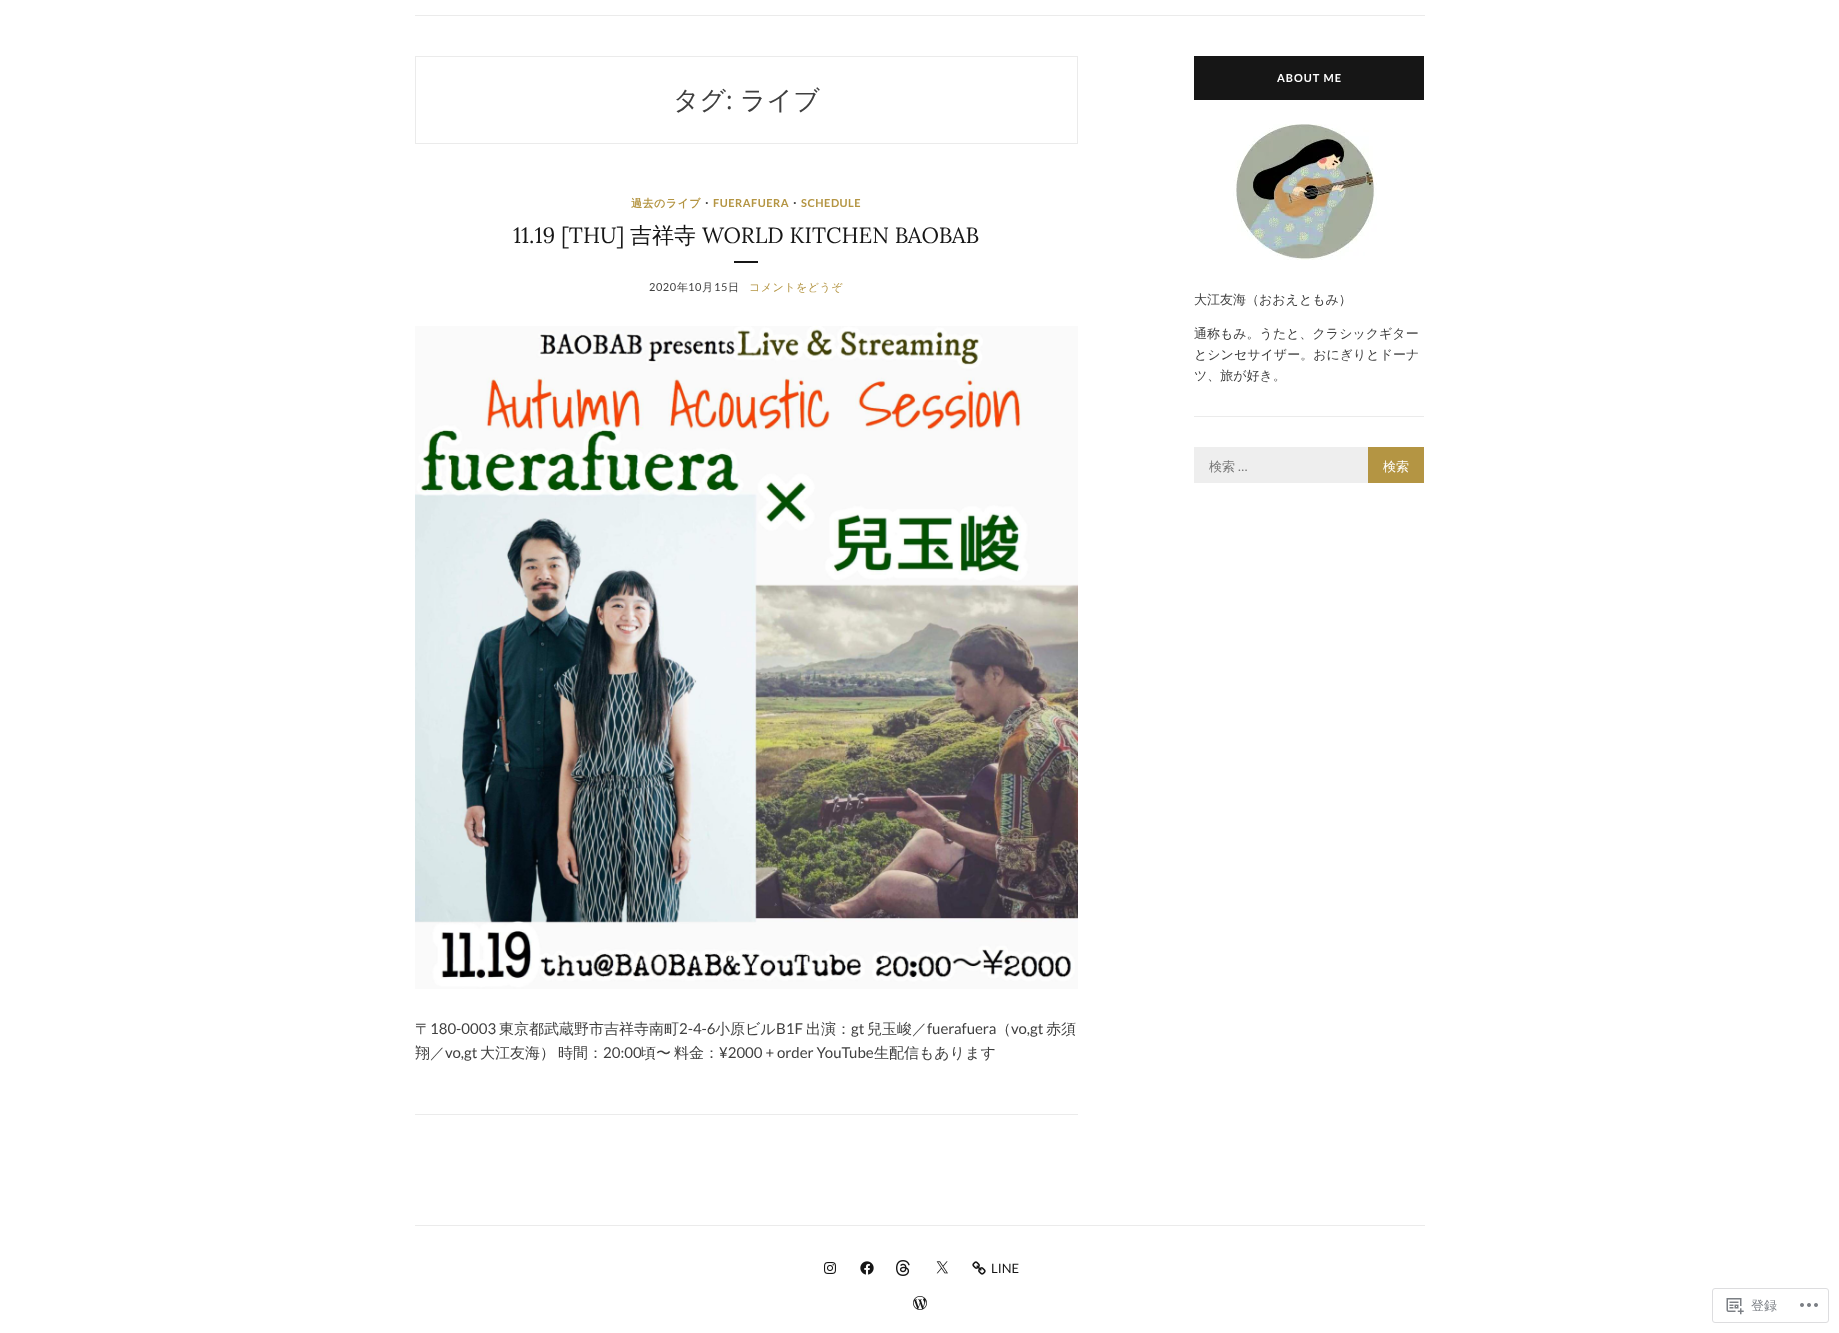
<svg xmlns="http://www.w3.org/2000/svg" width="1839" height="1333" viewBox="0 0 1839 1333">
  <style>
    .t1 { font: 500 26px WenQuanYi Zen Hei; fill: #404040; }
    .t2 { font: 26px Lora; fill: #404040; }
    .t3 { font: bold 11px WenQuanYi Zen Hei; letter-spacing: 0.5px; fill: #b49543; }
    .t4 { font: bold 11px WenQuanYi Zen Hei; letter-spacing: 0.5px; fill: #404040; }
    .t5 { font: bold 11px Lato; letter-spacing: 0.5px; fill: #b49543; }
    .t6 { font: 22px Lora; fill: #161616; }
    .t7 { font: 500 22px WenQuanYi Zen Hei; fill: #161616; }
    .t8 { font: 11px Lato; letter-spacing: 0.5px; fill: #404040; }
    .t9 { font: 500 11px WenQuanYi Zen Hei; letter-spacing: 0.5px; fill: #404040; }
    .t10 { font: 500 11px WenQuanYi Zen Hei; letter-spacing: 0.5px; fill: #b49543; }
    .t11 { font: 500 15px WenQuanYi Zen Hei; fill: #404040; }
    .t12 { font: 15px Lato; fill: #404040; }
    .t13 { font: bold 11px Lato; letter-spacing: 1px; fill: #fff; }
    .t14 { font: 500 13px WenQuanYi Zen Hei; fill: #404040; }
    .t15 { font: 500 13px WenQuanYi Zen Hei; fill: #757575; }
    .t16 { font: 13px Lato; fill: #757575; }
    .t17 { font: 500 13px WenQuanYi Zen Hei; fill: #fff; }
    .t18 { font: 13px Lato; fill: #161616; }
    .t19 { font: 500 13px WenQuanYi Zen Hei; fill: #7b7f85; }
  </style>
  <rect width="100%" height="100%" fill="#fff"/>
  <rect x="415" y="15" width="1010" height="1" fill="#ebebeb"/>
  <rect x="415.5" y="56.5" width="662" height="87" fill="none" stroke="#ebebeb"/>
  <text x="673" y="109" class="t1">タグ</text>
  <text x="726" y="109" class="t2">:</text>
  <text x="740" y="109" class="t1">ライブ</text>
  <rect x="415" y="1114" width="663" height="1" fill="#ebebeb"/>
  <text x="631" y="207" class="t3">過去のライブ</text>
  <text x="701" y="207" class="t4">・</text>
  <text x="713" y="207" class="t5">FUERAFUERA</text>
  <text x="789" y="207" class="t4">・</text>
  <text x="801" y="207" class="t5">SCHEDULE</text>
  <text x="513" y="243" class="t6">11.19 [THU]</text>
  <text x="630" y="243" class="t7">吉祥寺</text>
  <text x="702" y="243" class="t6">WORLD KITCHEN BAOBAB</text>
  <rect x="734" y="261" width="24" height="2" fill="#161616"/>
  <text x="649" y="291" class="t8">2020</text>
  <text x="677" y="291" class="t9">年</text>
  <text x="688" y="291" class="t8">10</text>
  <text x="702" y="291" class="t9">月</text>
  <text x="714" y="291" class="t8">15</text>
  <text x="728" y="291" class="t9">日</text>
  <text x="749" y="291" class="t10">コメントをどうぞ</text>
  <image x="415" y="326" width="663" height="663" href="images/1.png"/>
  <text x="415" y="1034" class="t11">〒</text>
  <text x="430" y="1034" class="t12">180-0003</text>
  <text x="499" y="1034" class="t11">東京都武蔵野市吉祥寺南町</text>
  <text x="679" y="1034" class="t12">2-4-6</text>
  <text x="715" y="1034" class="t11">小原ビル</text>
  <text x="776" y="1034" class="t12">B1F</text>
  <text x="806" y="1034" class="t11">出演：</text>
  <text x="851" y="1034" class="t12">gt</text>
  <text x="867" y="1034" class="t11">兒玉峻／</text>
  <text x="927" y="1034" class="t12">fuerafuera</text>
  <text x="996" y="1034" class="t11">（</text>
  <text x="1011" y="1034" class="t12">vo,gt</text>
  <text x="1046" y="1034" class="t11">赤須</text>
  <text x="415" y="1058" class="t11">翔／</text>
  <text x="445" y="1058" class="t12">vo,gt</text>
  <text x="480" y="1058" class="t11">大江友海）</text>
  <text x="558" y="1058" class="t11">時間：</text>
  <text x="603" y="1058" class="t12">20:00</text>
  <text x="641" y="1058" class="t11">頃〜</text>
  <text x="674" y="1058" class="t11">料金：</text>
  <text x="719" y="1058" class="t12">¥2000 + order YouTube</text>
  <text x="874" y="1058" class="t11">生配信もあります</text>
  <rect x="1194" y="416" width="230" height="1" fill="#ebebeb"/>
  <rect x="1194" y="56" width="230" height="44" fill="#161616"/>
  <text x="1277" y="82" class="t13">ABOUT ME</text>
  <image x="1233" y="124" width="144" height="136" href="images/2.png"/>
  <text x="1194" y="304" class="t14">大江友海（おおえともみ）</text>
  <text x="1194" y="338" class="t14">通称もみ。うたと、クラシックギター</text>
  <text x="1194" y="359" class="t14">とシンセサイザー。おにぎりとドーナ</text>
  <text x="1194" y="380" class="t14">ツ、旅が好き。</text>
  <rect x="1194" y="447" width="174" height="36" fill="#eee"/>
  <text x="1209" y="471" class="t15">検索</text>
  <text x="1238" y="471" class="t16">…</text>
  <rect x="1368" y="447" width="56" height="36" fill="#b49543"/>
  <text x="1383" y="471" class="t17">検索</text>
  <rect x="415" y="1225" width="1010" height="1" fill="#ebebeb"/>
  <image x="824" y="1262" width="12" height="12" href="images/3.png"/>
  <image x="860" y="1261" width="14" height="14" href="images/4.png"/>
  <image x="896" y="1260" width="14" height="16" href="images/5.png"/>
  <image x="936" y="1261" width="12" height="13" href="images/6.png"/>
  <image x="972" y="1261" width="14" height="14" href="images/7.png"/>
  <text x="991" y="1273" class="t18">LINE</text>
  <image x="913" y="1296" width="14" height="14" href="images/8.png"/>
  <rect x="1712.5" y="1288.5" width="116" height="34" rx="2.5" fill="none" stroke="#dddddf"/>
  <image x="1726" y="1298" width="18" height="17" href="images/9.png"/>
  <text x="1751" y="1310" class="t19">登録</text>
  <image x="1800" y="1303" width="18" height="4" href="images/10.png"/>
</svg>
